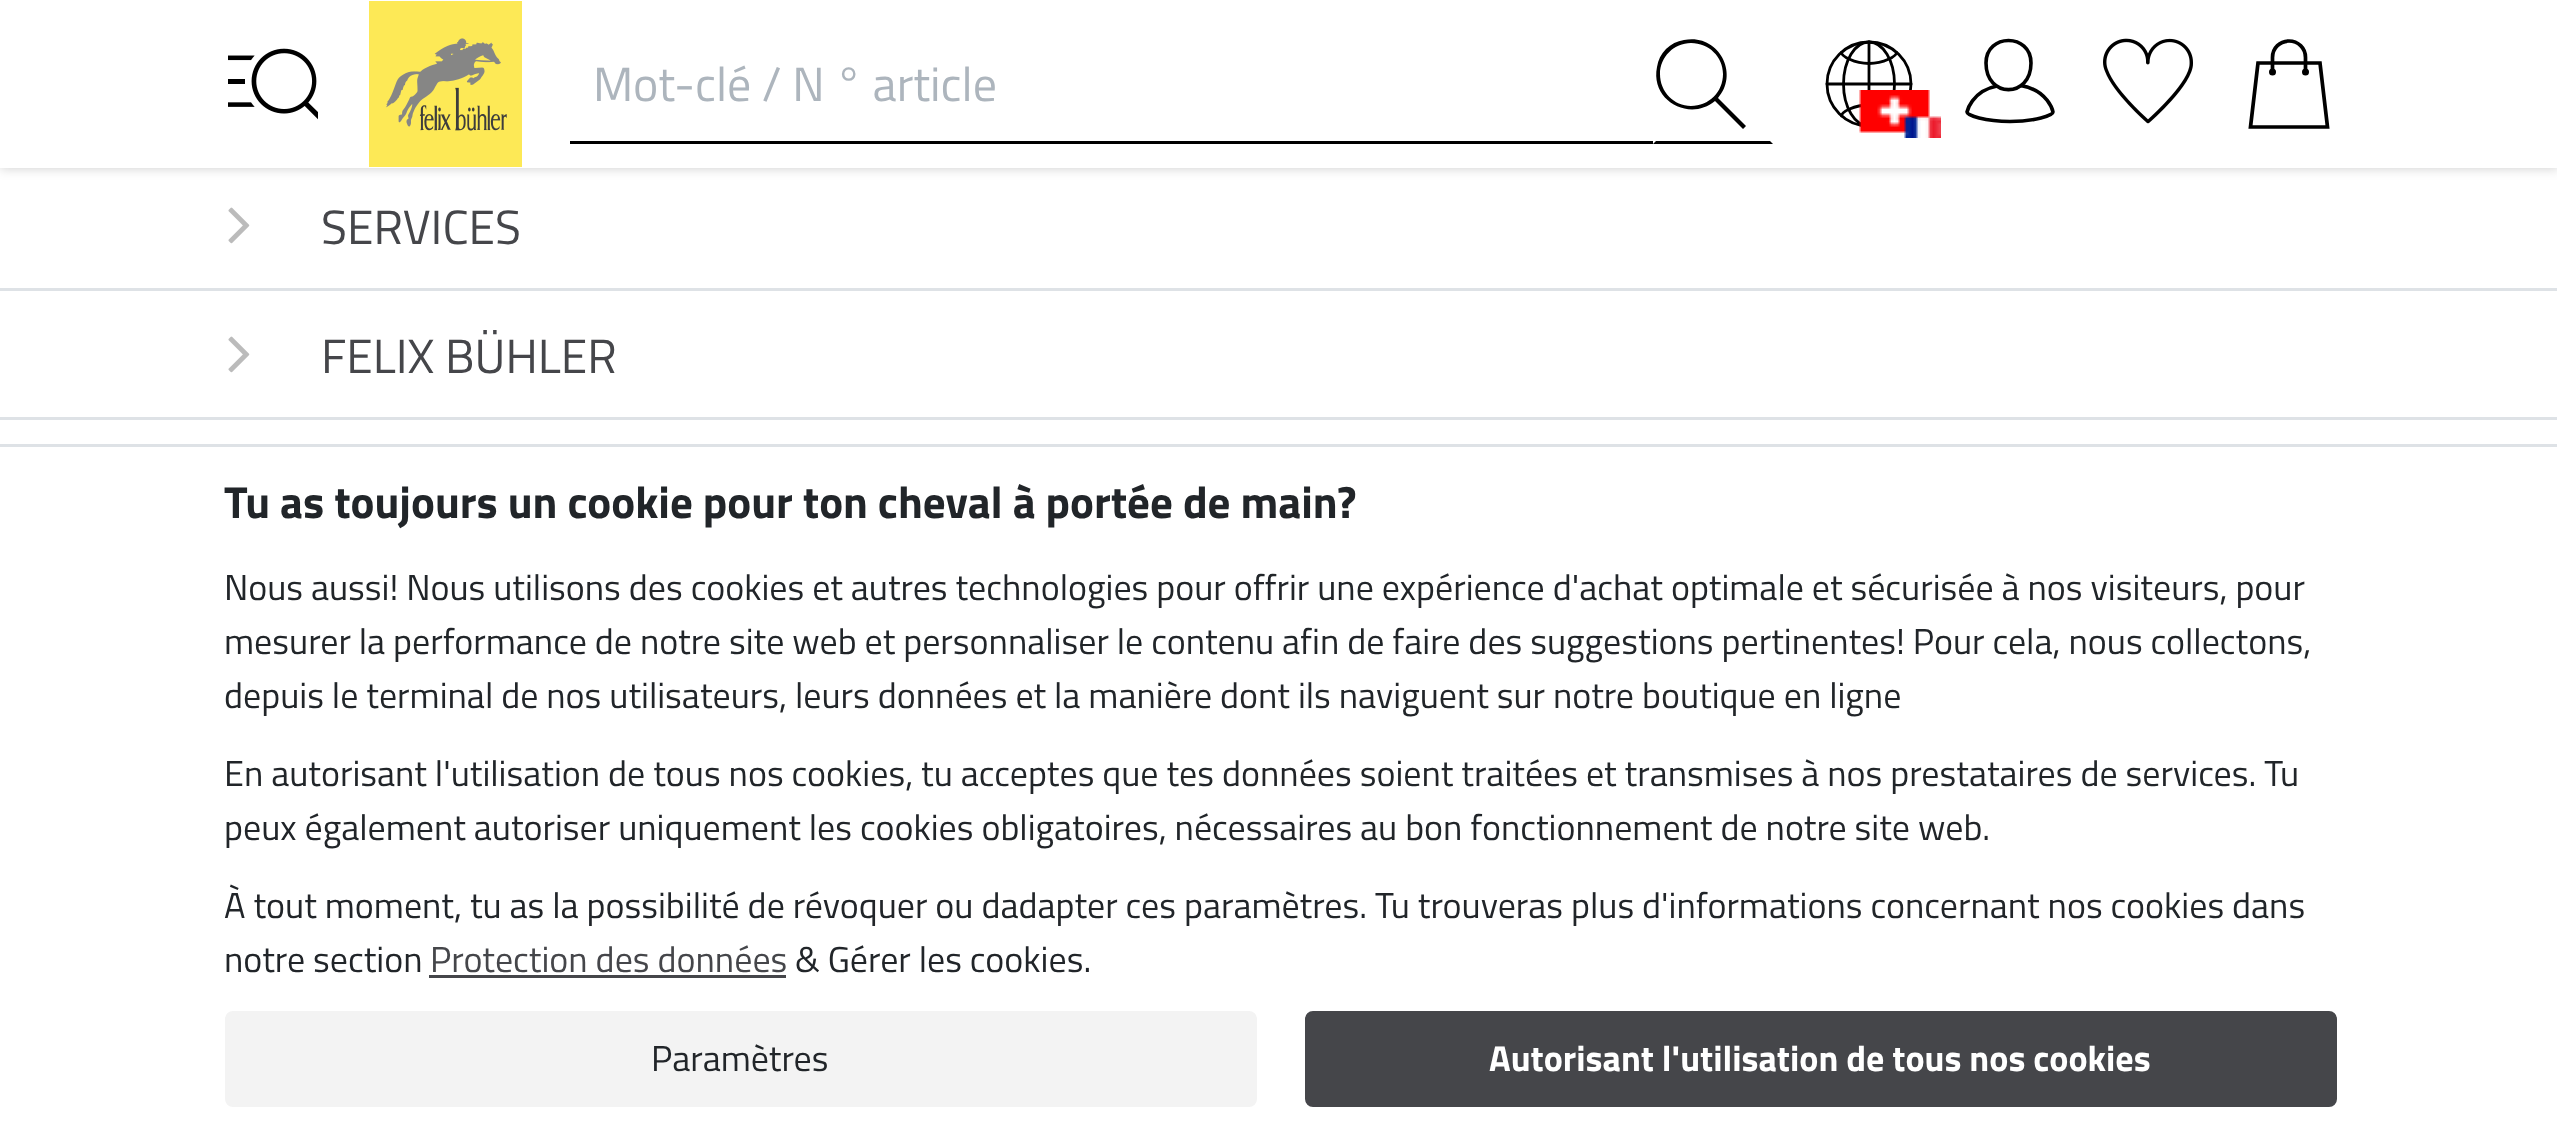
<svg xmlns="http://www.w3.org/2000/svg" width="2557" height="1130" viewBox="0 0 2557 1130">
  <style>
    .t1 { font: 48px Titillium Web; fill: #adb5bd; }
    .t2 { font: 48px Titillium Web; fill: #45464a; }
    .t3 { font: bold 45px Titillium Web; fill: #212529; }
    .t4 { font: 36px Titillium Web; fill: #212529; }
    .t5 { font: 36px Titillium Web; fill: #45464a; }
    .t6 { font: bold 36px Titillium Web; fill: #fff; }
  </style>
  <rect width="100%" height="100%" fill="#fff"/>
  <rect x="0" y="0" width="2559" height="168" fill="#00000033" filter="blur(6px)"/>
  <rect x="0" y="0" width="2557" height="168" fill="#fff"/>
  <image x="228" y="48" width="90" height="72" href="images/1.png"/>
  <image x="369" y="1" width="153" height="166" href="images/2.png"/>
  <rect x="570" y="141" width="1086" height="3" fill="#000"/>
  <text x="593" y="101" class="t1">Mot-clé / N ° article</text>
  <rect x="1653" y="141" width="3" height="3" fill="#fff"/>
  <path d="M1773 144H1653L1656 141H1770Z" fill="#000"/>
  <path d="M1723 74C1723 57 1709 43 1691 43C1674 43 1660 57 1660 74C1660 92 1674 106 1691 106C1709 106 1723 92 1723 74ZM1746 126L1743 129L1715 101C1690 122 1650 101 1657 67C1658 60 1661 54 1666 49C1671 44 1677 41 1684 40C1718 33 1740 73 1718 98Z" fill="#000" fill-rule="evenodd"/>
  <circle cx="1869" cy="84" r="42" fill="none" stroke="#000" stroke-width="2.8"/>
  <path d="M1869 42V126" fill="none" stroke="#000" stroke-width="2.8" stroke-linecap="round" stroke-linejoin="round"/>
  <path d="M1827 84H1911" fill="none" stroke="#000" stroke-width="2.8" stroke-linecap="round" stroke-linejoin="round"/>
  <ellipse cx="1869" cy="84" rx="25.5" ry="42" fill="none" stroke="#000" stroke-width="2.8"/>
  <path d="M1841.5 52.5C1841.5 56 1854 63.5 1869 63.5C1884 63.5 1896.5 56 1896.5 52.5" fill="none" stroke="#000" stroke-width="2.8" stroke-linecap="round" stroke-linejoin="round"/>
  <path d="M1841.5 116C1841.5 112 1854 105 1869 105C1884 105 1896.5 112 1896.5 116" fill="none" stroke="#000" stroke-width="2.8" stroke-linecap="round" stroke-linejoin="round"/>
  <image x="1859" y="90" width="82" height="48" href="images/3.png"/>
  <path d="M2031 63C2031 98.5 1986 98.5 1986 63C1986 33 2031 33 2031 63Z" fill="none" stroke="#000" stroke-width="3.6" stroke-linejoin="round"/>
  <path d="M1997 86C1971.5 91 1967 112 1967 112C1967 115.5 1985 121.5 2010 121.5C2035 121.5 2053 115.5 2053 112C2053 112 2048.5 90 2020.5 85.5" fill="none" stroke="#000" stroke-width="3.6" stroke-linejoin="round"/>
  <image x="2103" y="38" width="90" height="86" href="images/4.png"/>
  <path d="M2258 63L2250.5 127H2327.5L2320 63Z" fill="none" stroke="#000" stroke-width="3.7" stroke-linecap="round"/>
  <path d="M2305.5 72V57.5C2305.5 48 2298 41 2289 41C2280 41 2272.5 48 2272.5 57.5V72" fill="none" stroke="#000" stroke-width="3.7" stroke-linecap="round"/>
  <circle cx="2272.5" cy="72" r="3.5" fill="#000"/>
  <circle cx="2305.5" cy="72" r="3.5" fill="#000"/>
  <rect x="0" y="288" width="2557" height="3" fill="#dee2e6"/>
  <image x="228" y="207" width="22" height="37" href="images/5.png"/>
  <text x="321" y="244" class="t2">SERVICES</text>
  <rect x="0" y="417" width="2557" height="3" fill="#dee2e6"/>
  <image x="228" y="336" width="22" height="37" href="images/5.png"/>
  <text x="321" y="373" class="t2">FELIX BÜHLER</text>
  <rect x="0" y="444" width="2557" height="3" fill="#dee2e6"/>
  <text x="224" y="518" class="t3">Tu as toujours un cookie pour ton cheval à portée de main?</text>
  <text x="224" y="600" class="t4">Nous aussi! Nous utilisons des cookies et autres technologies pour offrir une expérience d'achat optimale et sécurisée à nos visiteurs, pour</text>
  <text x="224" y="654" class="t4">mesurer la performance de notre site web et personnaliser le contenu afin de faire des suggestions pertinentes! Pour cela, nous collectons,</text>
  <text x="224" y="708" class="t4">depuis le terminal de nos utilisateurs, leurs données et la manière dont ils naviguent sur notre boutique en ligne</text>
  <text x="224" y="786" class="t4">En autorisant l'utilisation de tous nos cookies, tu acceptes que tes données soient traitées et transmises à nos prestataires de services. Tu</text>
  <text x="224" y="840" class="t4">peux également autoriser uniquement les cookies obligatoires, nécessaires au bon fonctionnement de notre site web.</text>
  <text x="224" y="918" class="t4">À tout moment, tu as la possibilité de révoquer ou dadapter ces paramètres. Tu trouveras plus d'informations concernant nos cookies dans</text>
  <text x="224" y="972" class="t4">notre section</text>
  <text x="430" y="972" class="t5">Protection des données</text>
  <rect x="429" y="975" width="357" height="3" fill="#45464a"/>
  <text x="795" y="972" class="t4">&amp; Gérer les cookies.</text>
  <rect x="226.5" y="1012.5" width="1029" height="93" rx="6.5" fill="#f3f3f3" stroke="#f3f3f3" stroke-width="3"/>
  <text x="651" y="1071" class="t4">Paramètres</text>
  <rect x="1306.5" y="1012.5" width="1029" height="93" rx="6.5" fill="#45464a" stroke="#45464a" stroke-width="3"/>
  <text x="1489" y="1071" class="t6">Autorisant l'utilisation de tous nos cookies</text>
</svg>
